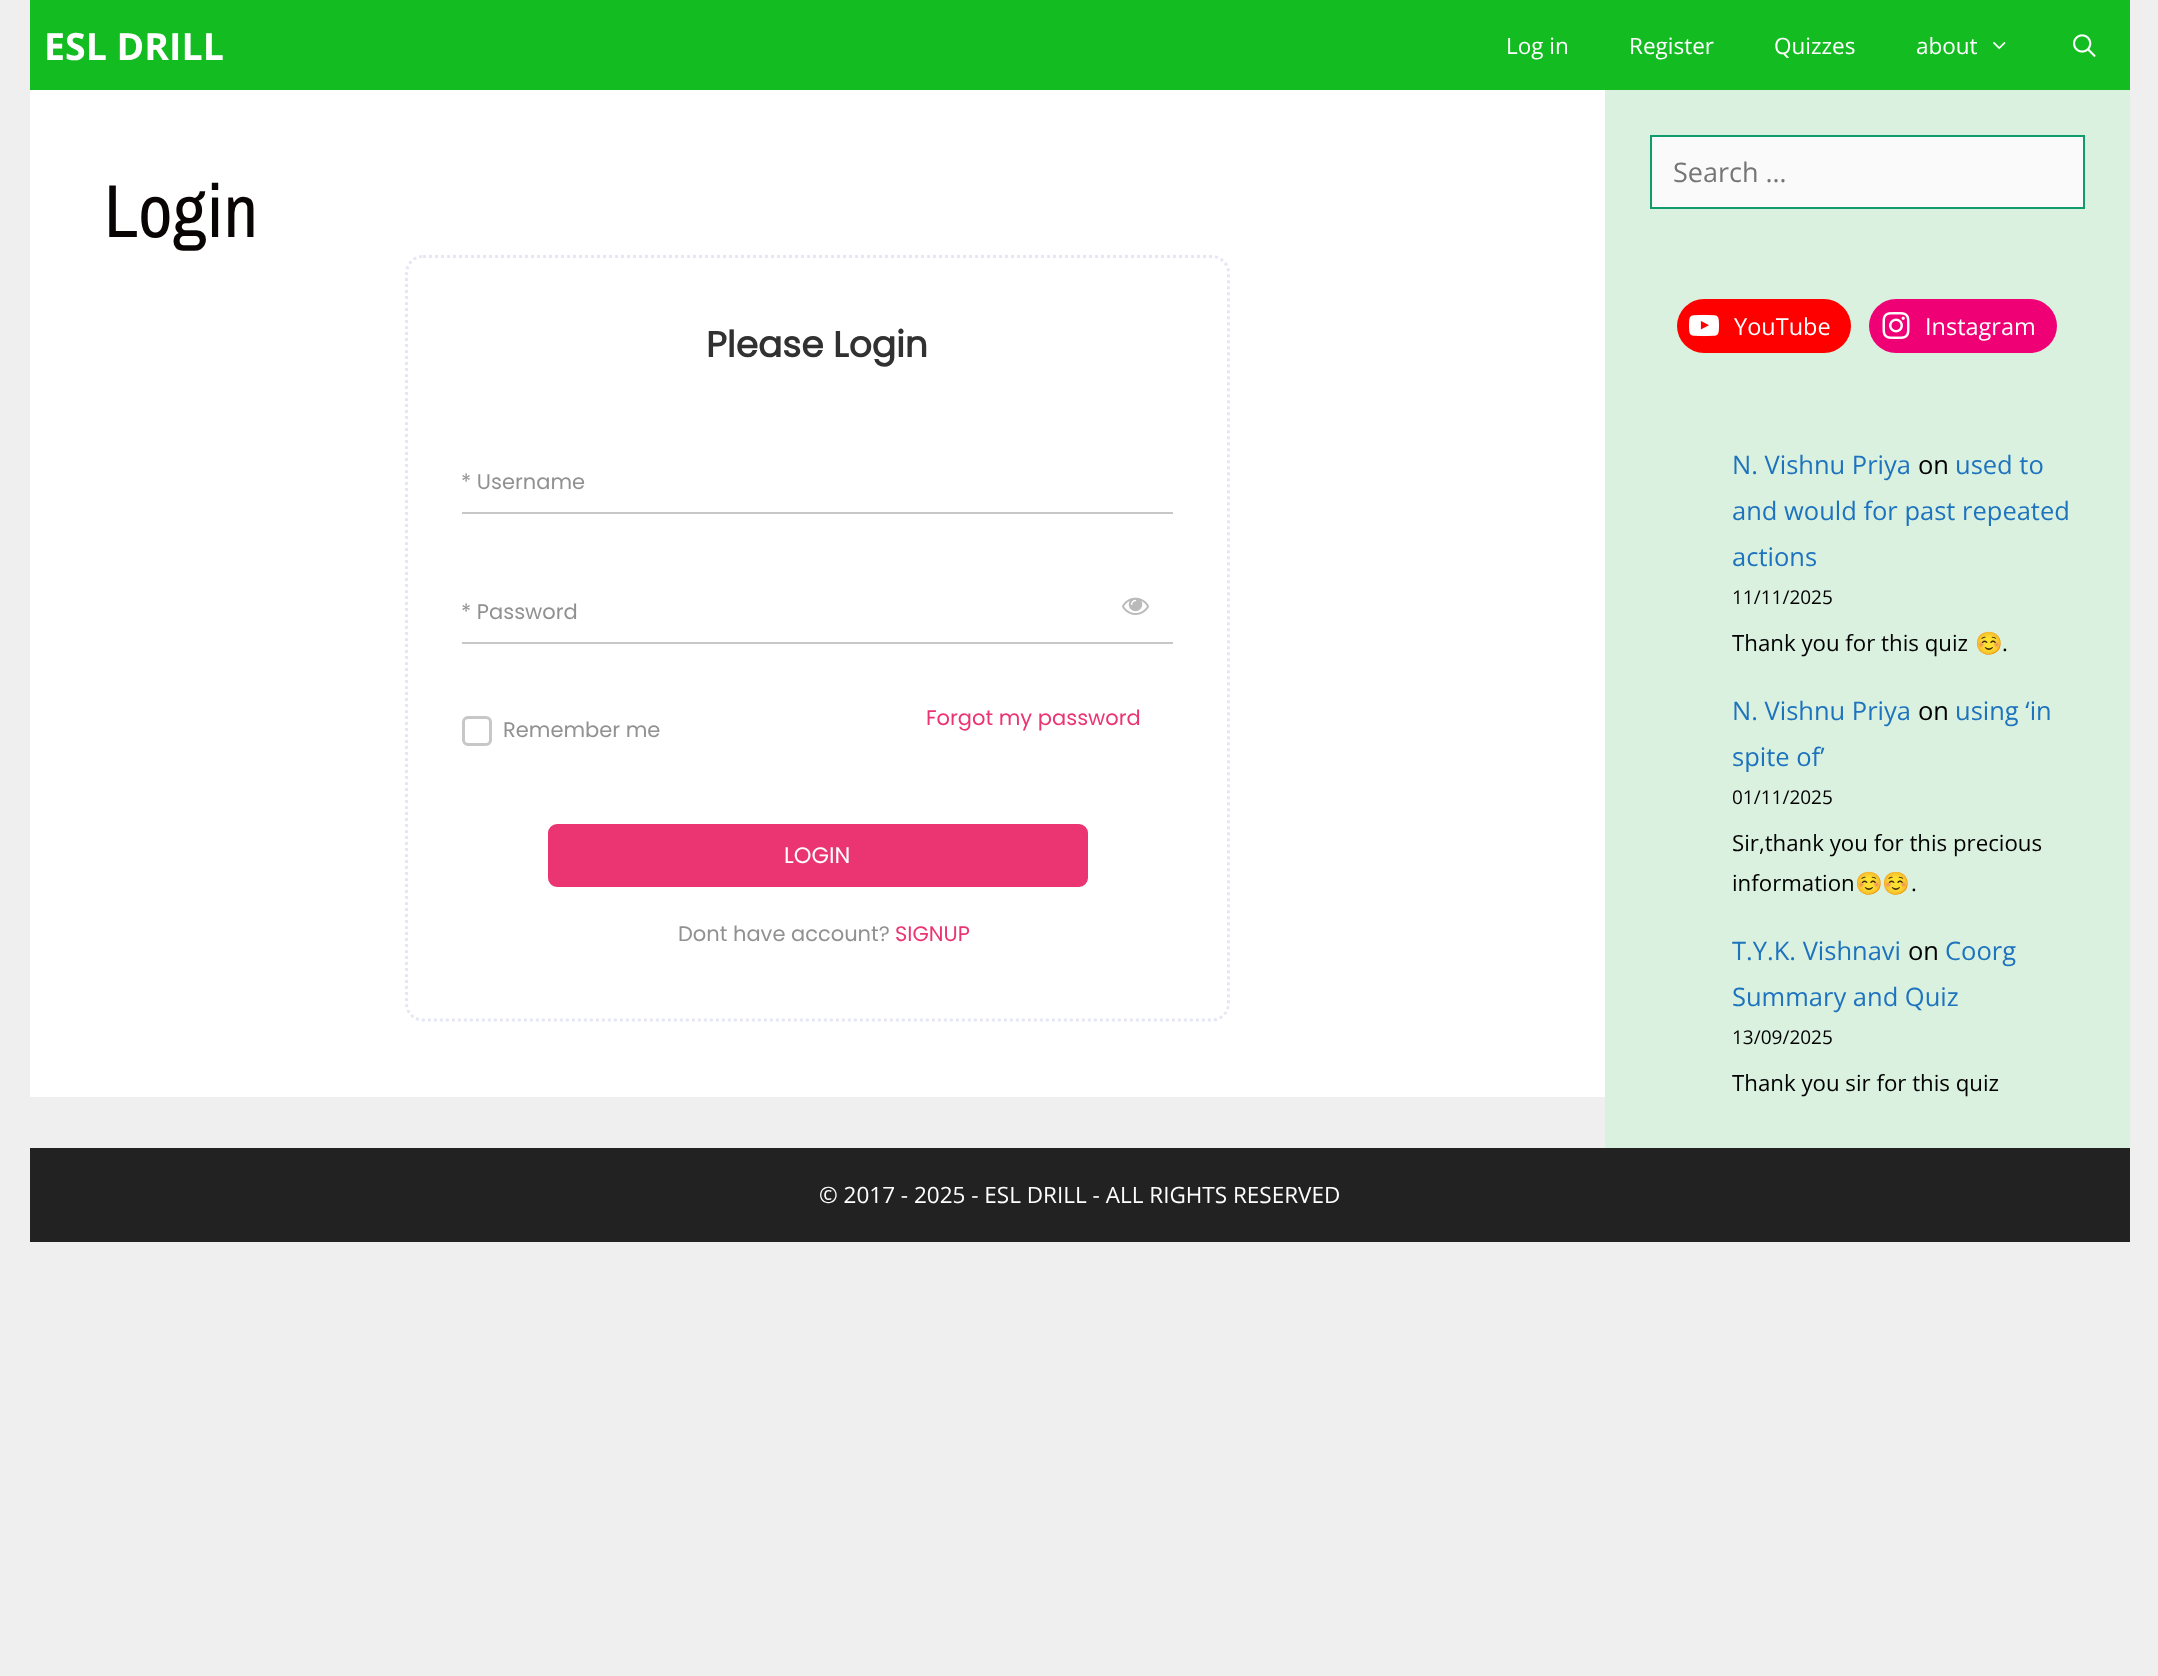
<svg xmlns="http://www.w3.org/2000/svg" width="2158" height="1676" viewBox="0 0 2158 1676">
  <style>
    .t1 { font: bold 37.5px Open Sans; fill: #fff; }
    .t2 { font: 22.5px Open Sans; fill: #fff; }
    .t3 { font: 75px Archivo Narrow; fill: #0a0505; }
    .t4 { font: bold 36px Poppins; fill: #313131; }
    .t5 { font: 21px Poppins; fill: #919191; }
    .t6 { font: 22.5px Poppins; fill: #fff; }
    .t7 { font: 21px Poppins; fill: #eb3573; }
    .t8 { font: 27px Open Sans; fill: #757575; }
    .t9 { font: 23.5px Open Sans; fill: #fff; }
    .t10 { font: 25.5px Open Sans; fill: #1e73be; }
    .t11 { font: 25.5px Open Sans; fill: #000; }
    .t12 { font: 19px Open Sans; fill: #000; }
    .t13 { font: 22.25px Open Sans; fill: #000; }
    .t14 { font: 22.25px Noto Color Emoji; fill: #000; }
  </style>
  <rect width="100%" height="100%" fill="#efefef"/>
  <rect x="30" y="0" width="2100" height="90" fill="#13bc21"/>
  <text x="44" y="60" class="t1">ESL DRILL</text>
  <text x="1506" y="54" class="t2">Log in</text>
  <text x="1629" y="54" class="t2">Register</text>
  <text x="1774" y="54" class="t2">Quizzes</text>
  <text x="1916" y="54" class="t2">about</text>
  <image x="1993" y="42" width="13" height="8" href="images/1.png"/>
  <image x="2073" y="34" width="23" height="23" href="images/2.png"/>
  <rect x="30" y="90" width="1575" height="1007" fill="#fff"/>
  <text x="104" y="237" class="t3">Login</text>
  <path d="M423 256.5H1212C1221 256.5 1228.5 264 1228.5 273V1003.5C1228.5 1012.5 1221 1020 1212 1020H423C414 1020 406.5 1012.5 406.5 1003.5V273C406.5 264 414 256.5 423 256.5Z" fill="none" stroke="#e6e7f5" stroke-width="3" stroke-dasharray="3 3"/>
  <text x="706" y="357" class="t4">Please Login</text>
  <text x="461" y="489" class="t5">* Username</text>
  <rect x="462" y="512" width="711" height="2" fill="#c7c7c7"/>
  <text x="461" y="619" class="t5">* Password</text>
  <image x="1122" y="597" width="27" height="18" href="images/3.png"/>
  <rect x="462" y="642" width="711" height="2" fill="#c7c7c7"/>
  <rect x="463.5" y="717.5" width="27" height="27" rx="4.5" fill="none" stroke="#c7c7c7" stroke-width="3"/>
  <text x="503" y="737" class="t5">Remember me</text>
  <rect x="549" y="825" width="538" height="61" rx="8" fill="#eb3573" stroke="#eb3573" stroke-width="2"/>
  <text x="784" y="863" class="t6">LOGIN</text>
  <text x="926" y="725" class="t7">Forgot my password</text>
  <text x="678" y="941" class="t5">Dont have account?</text>
  <text x="895" y="941" class="t7">SIGNUP</text>
  <rect x="1605" y="90" width="525" height="308" fill="#d9f1de"/>
  <rect x="1651" y="136" width="433" height="72" fill="#fafafa" stroke="#119b6d" stroke-width="2"/>
  <text x="1673" y="182" class="t8">Search …</text>
  <rect x="1677" y="299" width="174" height="54" rx="27" fill="#f00"/>
  <image x="1689" y="314" width="30" height="23" href="images/4.png"/>
  <text x="1734" y="335" class="t9">YouTube</text>
  <rect x="1869" y="299" width="188" height="54" rx="27" fill="#f00075"/>
  <image x="1882" y="312" width="28" height="27" href="images/5.png"/>
  <text x="1925" y="335" class="t9">Instagram</text>
  <rect x="1605" y="398" width="525" height="750" fill="#daf1df"/>
  <text x="1732" y="474" class="t10">N. Vishnu Priya</text>
  <text x="1918" y="474" class="t11">on</text>
  <text x="1955" y="474" class="t10">used to</text>
  <text x="1732" y="520" class="t10">and would for past repeated</text>
  <text x="1732" y="566" class="t10">actions</text>
  <text x="1732" y="604" class="t12">11/11/2025</text>
  <text x="1732" y="651" class="t13">Thank you for this quiz</text>
  <text x="1975" y="651" class="t14">☺️</text>
  <text x="2002" y="651" class="t13">.</text>
  <text x="1732" y="720" class="t10">N. Vishnu Priya</text>
  <text x="1918" y="720" class="t11">on</text>
  <text x="1955" y="720" class="t10">using ‘in</text>
  <text x="1732" y="766" class="t10">spite of’</text>
  <text x="1732" y="804" class="t12">01/11/2025</text>
  <text x="1732" y="851" class="t13">Sir,thank you for this precious</text>
  <text x="1732" y="891" class="t13">information</text>
  <text x="1855" y="891" class="t14">☺️☺️</text>
  <text x="1911" y="891" class="t13">.</text>
  <text x="1732" y="960" class="t10">T.Y.K. Vishnavi</text>
  <text x="1908" y="960" class="t11">on</text>
  <text x="1945" y="960" class="t10">Coorg</text>
  <text x="1732" y="1006" class="t10">Summary and Quiz</text>
  <text x="1732" y="1044" class="t12">13/09/2025</text>
  <text x="1732" y="1091" class="t13">Thank you sir for this quiz</text>
  <rect x="30" y="1148" width="2100" height="94" fill="#222"/>
  <text x="819" y="1203" class="t2">© 2017 - 2025 - ESL DRILL - ALL RIGHTS RESERVED</text>
</svg>
